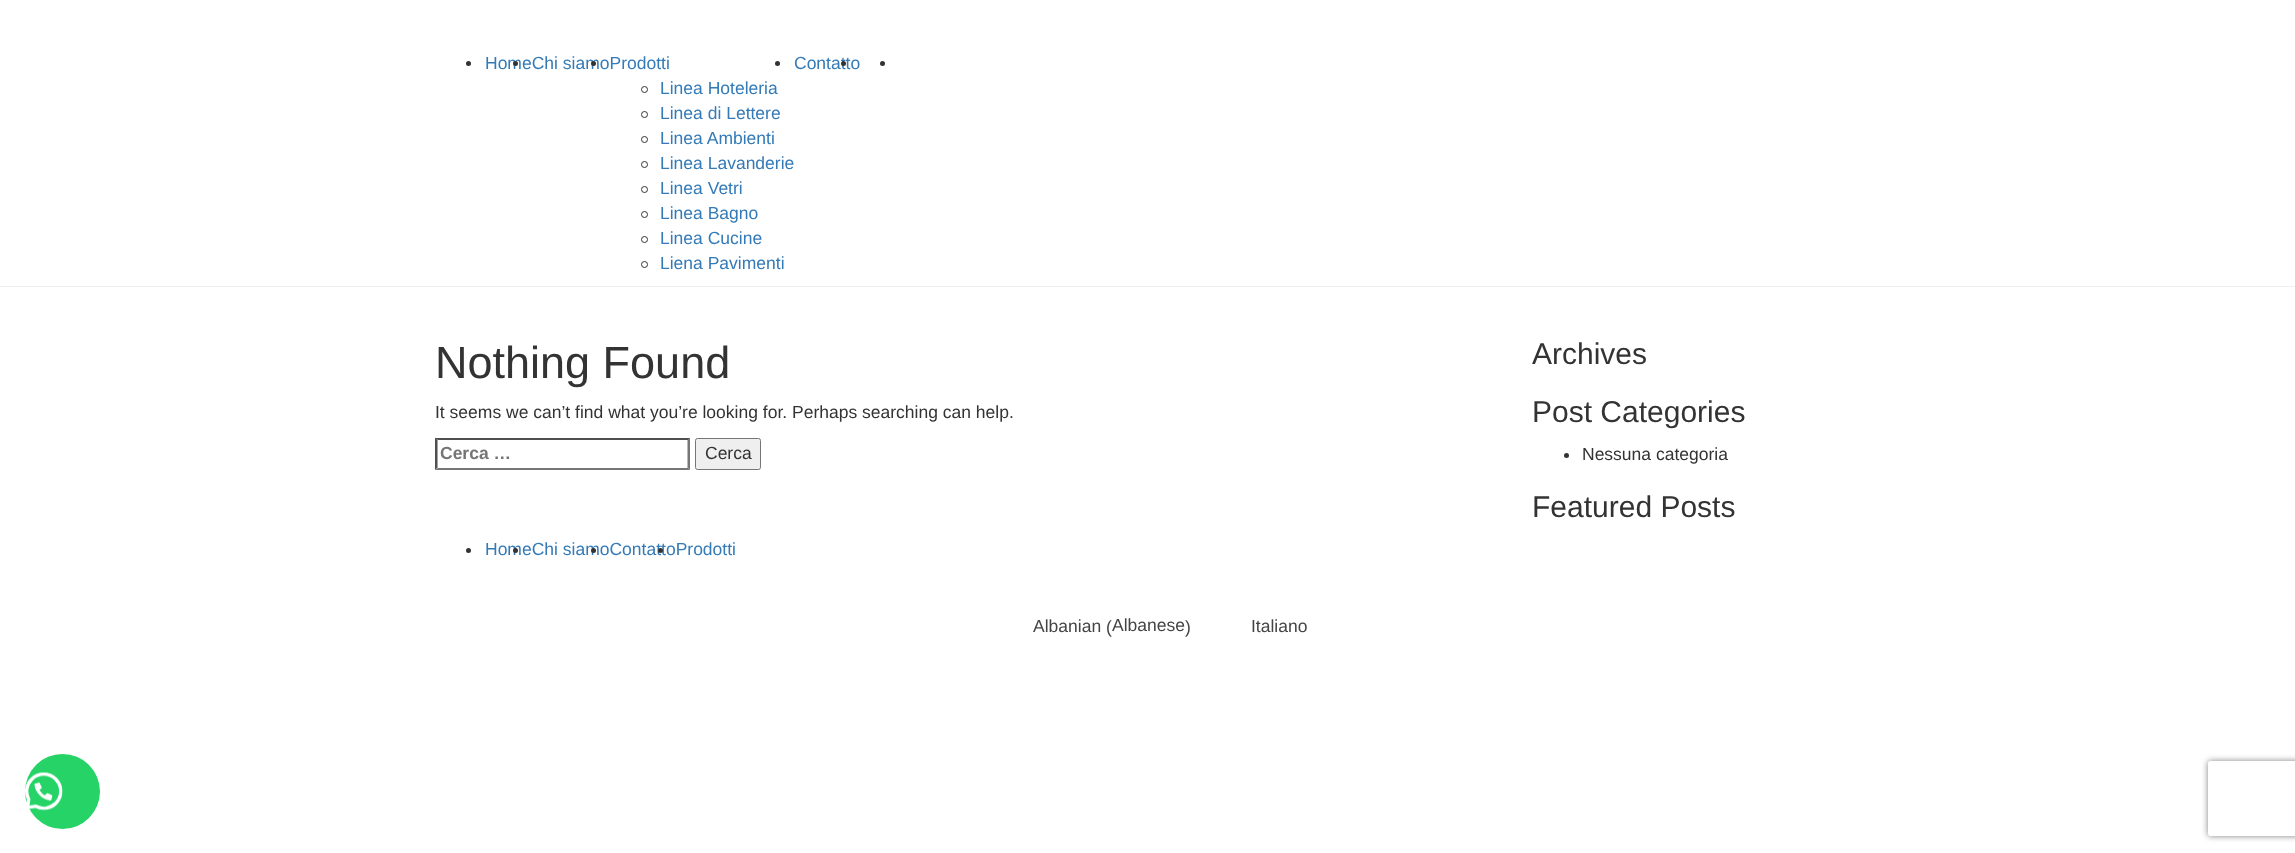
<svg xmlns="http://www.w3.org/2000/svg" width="2295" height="853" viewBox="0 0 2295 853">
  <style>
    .t1 { font: 17.5px Liberation Sans; fill: #337ab7; }
    .t2 { font: 45px Liberation Sans; fill: #333; }
    .t3 { font: 17.5px Liberation Sans; fill: #333; }
    .t4 { font: bold 17.5px Liberation Sans; fill: #757575; }
    .t5 { font: 30px Liberation Sans; fill: #333; }
    .t6 { font: 17.5px Liberation Sans; fill: #444; }
  </style>
  <defs>
    <clipPath id="clip1"><path d="M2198 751H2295V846H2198ZM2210.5 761H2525.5C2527 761 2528 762 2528 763.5V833.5C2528 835 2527 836 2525.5 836H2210.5C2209 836 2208 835 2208 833.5V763.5C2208 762 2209 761 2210.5 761Z" clip-rule="evenodd"/></clipPath>
  </defs>
  <rect width="100%" height="100%" fill="#fff"/>
  <rect x="0" y="286" width="2295" height="1" fill="#eee"/>
  <circle cx="468.5" cy="63.5" r="2.5" fill="#333"/>
  <text x="485" y="69" class="t1">HomeChi siamoProdotti</text>
  <circle cx="777.5" cy="63.5" r="2.5" fill="#333"/>
  <text x="794" y="69" class="t1">Contatto</text>
  <circle cx="515.5" cy="63.5" r="2.5" fill="#333"/>
  <circle cx="843.5" cy="63.5" r="2.5" fill="#333"/>
  <circle cx="882.5" cy="63.5" r="2.5" fill="#333"/>
  <circle cx="593.5" cy="63.5" r="2.5" fill="#333"/>
  <circle cx="644.5" cy="89.5" r="3" fill="none" stroke="#333"/>
  <text x="660" y="94" class="t1">Linea Hoteleria</text>
  <circle cx="644.5" cy="114.5" r="3" fill="none" stroke="#333"/>
  <text x="660" y="119" class="t1">Linea di Lettere</text>
  <circle cx="644.5" cy="139.5" r="3" fill="none" stroke="#333"/>
  <text x="660" y="144" class="t1">Linea Ambienti</text>
  <circle cx="644.5" cy="164.5" r="3" fill="none" stroke="#333"/>
  <text x="660" y="169" class="t1">Linea Lavanderie</text>
  <circle cx="644.5" cy="189.5" r="3" fill="none" stroke="#333"/>
  <text x="660" y="194" class="t1">Linea Vetri</text>
  <circle cx="644.5" cy="214.5" r="3" fill="none" stroke="#333"/>
  <text x="660" y="219" class="t1">Linea Bagno</text>
  <circle cx="644.5" cy="239.5" r="3" fill="none" stroke="#333"/>
  <text x="660" y="244" class="t1">Linea Cucine</text>
  <circle cx="644.5" cy="264.5" r="3" fill="none" stroke="#333"/>
  <text x="660" y="269" class="t1">Liena Pavimenti</text>
  <text x="435" y="378" class="t2">Nothing Found</text>
  <text x="435" y="418" class="t3">It seems we can’t find what you’re looking for. Perhaps searching can help.</text>
  <path d="M435 438H690L688 440H438Z" fill="#4f4f4f"/>
  <path d="M690 437.5V470L687.5 467.5V440Z" fill="#767676"/>
  <path d="M690 470H435L438 468H688Z" fill="#767676"/>
  <path d="M435 470V437.5L437.5 440V467.5Z" fill="#4f4f4f"/>
  <text x="440" y="459" class="t4">Cerca …</text>
  <rect x="695.5" y="438.5" width="65" height="31" rx="2" fill="#efefef" stroke="#767676"/>
  <text x="705" y="459" class="t3">Cerca</text>
  <text x="1532" y="364" class="t5">Archives</text>
  <text x="1532" y="422" class="t5">Post Categories</text>
  <circle cx="1566.5" cy="455.5" r="2.5" fill="#333"/>
  <text x="1582" y="460" class="t3">Nessuna categoria</text>
  <text x="1532" y="517" class="t5">Featured Posts</text>
  <circle cx="468.5" cy="550.5" r="2.5" fill="#333"/>
  <text x="485" y="555" class="t1">HomeChi siamoContattoProdotti</text>
  <circle cx="515.5" cy="550.5" r="2.5" fill="#333"/>
  <circle cx="593.5" cy="550.5" r="2.5" fill="#333"/>
  <circle cx="660.5" cy="550.5" r="2.5" fill="#333"/>
  <text x="1033" y="632" class="t6">Albanian</text>
  <text x="1106" y="633" class="t6">(</text>
  <text x="1112" y="631" class="t6">Albanese</text>
  <text x="1185" y="633" class="t6">)</text>
  <text x="1251" y="632" class="t6">Italiano</text>
  <circle cx="62.5" cy="791.5" r="37.5" fill="#25d366"/>
  <image x="25" y="772" width="38" height="39" href="images/1.png"/>
  <g clip-path="url(#clip1)">
    <rect x="2208" y="761" width="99" height="75" rx="2.5" fill="#808080" filter="blur(3px)"/>
  </g>
</svg>
